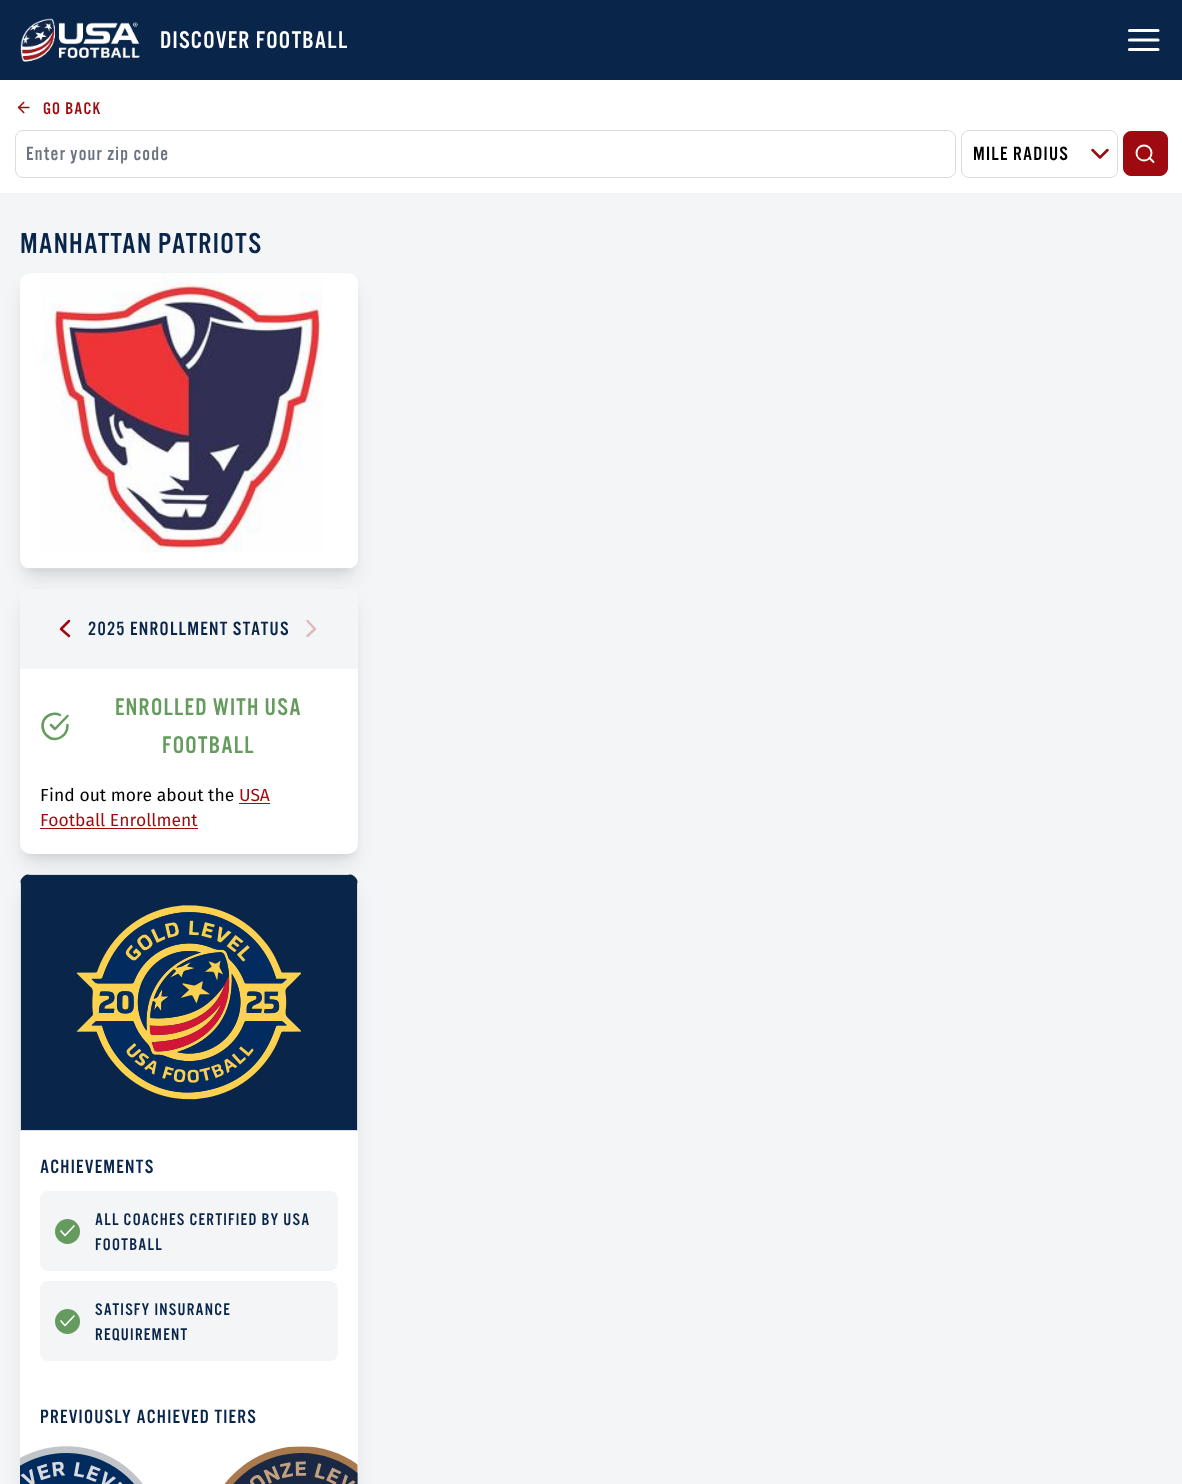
<svg xmlns="http://www.w3.org/2000/svg" width="1182" height="1484" viewBox="0 0 1182 1484">
  <style>
    .t1 { font: 500 25px 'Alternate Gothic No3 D'; letter-spacing: 1.25px; fill: #fff; }
    .t2 { font: 500 17.5px 'Alternate Gothic No3 D'; letter-spacing: 1.25px; fill: #9e0a0f; }
    .t3 { font: 500 20px 'Alternate Gothic No3 D'; letter-spacing: 1.25px; fill: #6b7280; }
    .t4 { font: 500 20px 'Alternate Gothic No3 D'; letter-spacing: 1.25px; fill: #000; }
    .t5 { font: 500 30px 'Alternate Gothic No3 D'; letter-spacing: 1.25px; fill: #09254a; }
    .t6 { font: 500 20px 'Alternate Gothic No3 D'; letter-spacing: 1.25px; fill: #09254a; }
    .t7 { font: 500 25px 'Alternate Gothic No3 D'; letter-spacing: 1.25px; fill: #659b5e; }
    .t8 { font: 17.5px Fira Sans; fill: #000; }
    .t9 { font: 17.5px Fira Sans; fill: #9e0a0f; }
    .t10 { font: 500 17.5px 'Alternate Gothic No3 D'; letter-spacing: 1.25px; fill: #09254a; }
  </style>
  <defs>
    <clipPath id="clip1"><rect x="20" y="273" width="338" height="296" rx="10"/></clipPath>
  </defs>
  <rect width="100%" height="100%" fill="#f3f5f7"/>
  <rect x="0" y="0" width="1182" height="80" fill="#09254a"/>
  <image x="20" y="18" width="120" height="44" href="images/1.png"/>
  <text x="160" y="48" class="t1">DISCOVER FOOTBALL</text>
  <path d="M1129.5 40H1158M1129.5 30.5H1158M1129.5 49.5H1158" fill="none" stroke="#fff" stroke-width="3.1" stroke-linecap="round" stroke-linejoin="round"/>
  <rect x="0" y="80" width="1182" height="113" fill="#fff"/>
  <image x="17" y="101" width="13" height="13" href="images/2.png"/>
  <text x="43" y="114" class="t2">GO BACK</text>
  <rect x="15.5" y="130.5" width="940" height="47" rx="7.5" fill="none" stroke="#dcdcdc"/>
  <text x="26" y="160" class="t3">Enter your zip code</text>
  <rect x="961.5" y="130.5" width="156" height="47" rx="7.5" fill="none" stroke="#dcdcdc"/>
  <rect x="963" y="131" width="153" height="45" rx="6" fill="#fff"/>
  <path d="M1092.5 150L1100 157.5L1107.5 150" fill="none" stroke="#9e0a0f" stroke-width="2.5" stroke-linecap="round" stroke-linejoin="round"/>
  <text x="973" y="160" class="t4">MILE RADIUS</text>
  <rect x="1123.5" y="131.5" width="44" height="44" rx="7.5" fill="#9e0a0f" stroke="#9e0a0f"/>
  <circle cx="1144" cy="153" r="7.5" fill="none" stroke="#fff" stroke-width="1.9"/>
  <path d="M1153.5 162L1149.5 158" fill="none" stroke="#fff" stroke-width="1.9" stroke-linecap="round" stroke-linejoin="round"/>
  <text x="20" y="253" class="t5">MANHATTAN PATRIOTS</text>
  <rect x="25" y="283" width="328" height="286" rx="5" fill="#0000001a" filter="blur(4px)"/>
  <rect x="24" y="289" width="330" height="289" rx="6" fill="#0000001a" filter="blur(9.5px)"/>
  <rect x="20" y="273" width="338" height="296" rx="10" fill="#fff"/>
  <g clip-path="url(#clip1)">
    <rect x="20" y="568" width="338" height="1" fill="#dcdcdc"/>
  </g>
  <image x="41" y="273" width="282" height="280" href="images/3.png"/>
  <rect x="25" y="599" width="328" height="255" rx="5" fill="#0000001a" filter="blur(4px)"/>
  <rect x="24" y="605" width="330" height="258" rx="6" fill="#0000001a" filter="blur(9.5px)"/>
  <rect x="20" y="589" width="338" height="265" rx="10" fill="#fff"/>
  <path d="M30 589H348C353.5 589 358 593.5 358 599V669H20V599C20 593.5 24.5 589 30 589Z" fill="#f3f5f7"/>
  <path d="M69 636L61 629L69 621" fill="none" stroke="#9e0a0f" stroke-width="2.5" stroke-linecap="round" stroke-linejoin="round"/>
  <text x="88" y="635" class="t6">2025 ENROLLMENT STATUS</text>
  <path d="M307.5 636L315 629L307.5 621" fill="none" stroke="#debabd" stroke-width="2.5" stroke-linecap="round" stroke-linejoin="round"/>
  <text x="115" y="715" class="t7">ENROLLED WITH USA</text>
  <path d="M67.5 725C67.5 730.5 65.5 735 60.5 737.5C45 745 34.5 721 50.5 714.5C53.5 713.5 57 713.5 60 715M67.5 716L55 729L51 725" fill="none" stroke="#659b5e" stroke-width="2.5" stroke-linecap="round" stroke-linejoin="round"/>
  <text x="162" y="753" class="t7">FOOTBALL</text>
  <text x="40" y="801" class="t8">Find out more about the</text>
  <text x="239" y="801" class="t9">USA</text>
  <rect x="239" y="803" width="31" height="1" fill="#9e0a0f"/>
  <text x="40" y="826" class="t9">Football Enrollment</text>
  <rect x="40" y="828" width="158" height="1" fill="#9e0a0f"/>
  <rect x="24" y="890" width="330" height="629" rx="6" fill="#0000001a" filter="blur(9.5px)"/>
  <rect x="20" y="874" width="338" height="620" rx="10" fill="#fff"/>
  <path d="M30 874H348C353.5 874 358 878.5 358 884V1131H20V884C20 878.5 24.5 874 30 874Z" fill="#09254a"/>
  <path d="M20 884V1131H358V884L357 880V1130H21V880ZM30 874L26 875H352L348 874Z" fill="#dcdcdc" fill-rule="evenodd"/>
  <image x="76" y="905" width="225" height="195" href="images/4.png"/>
  <text x="40" y="1173" class="t6">ACHIEVEMENTS</text>
  <rect x="40" y="1191" width="298" height="80" rx="8" fill="#f3f5f7"/>
  <circle cx="67.5" cy="1231.5" r="12.5" fill="#659b5e"/>
  <path d="M74 1226L65 1235.5L61 1231" fill="none" stroke="#fff" stroke-width="1.7" stroke-linecap="round" stroke-linejoin="round"/>
  <text x="95" y="1225" class="t10">ALL COACHES CERTIFIED BY USA</text>
  <text x="95" y="1250" class="t10">FOOTBALL</text>
  <rect x="40" y="1281" width="298" height="80" rx="8" fill="#f3f5f7"/>
  <circle cx="67.5" cy="1321.5" r="12.5" fill="#659b5e"/>
  <path d="M74 1316L65 1325.5L61 1321" fill="none" stroke="#fff" stroke-width="1.7" stroke-linecap="round" stroke-linejoin="round"/>
  <text x="95" y="1315" class="t10">SATISFY INSURANCE</text>
  <text x="95" y="1340" class="t10">REQUIREMENT</text>
  <text x="40" y="1423" class="t6">PREVIOUSLY ACHIEVED TIERS</text>
  <image x="20" y="1446" width="123" height="38" href="images/5.png"/>
  <image x="224" y="1446" width="134" height="38" href="images/6.png"/>
</svg>
